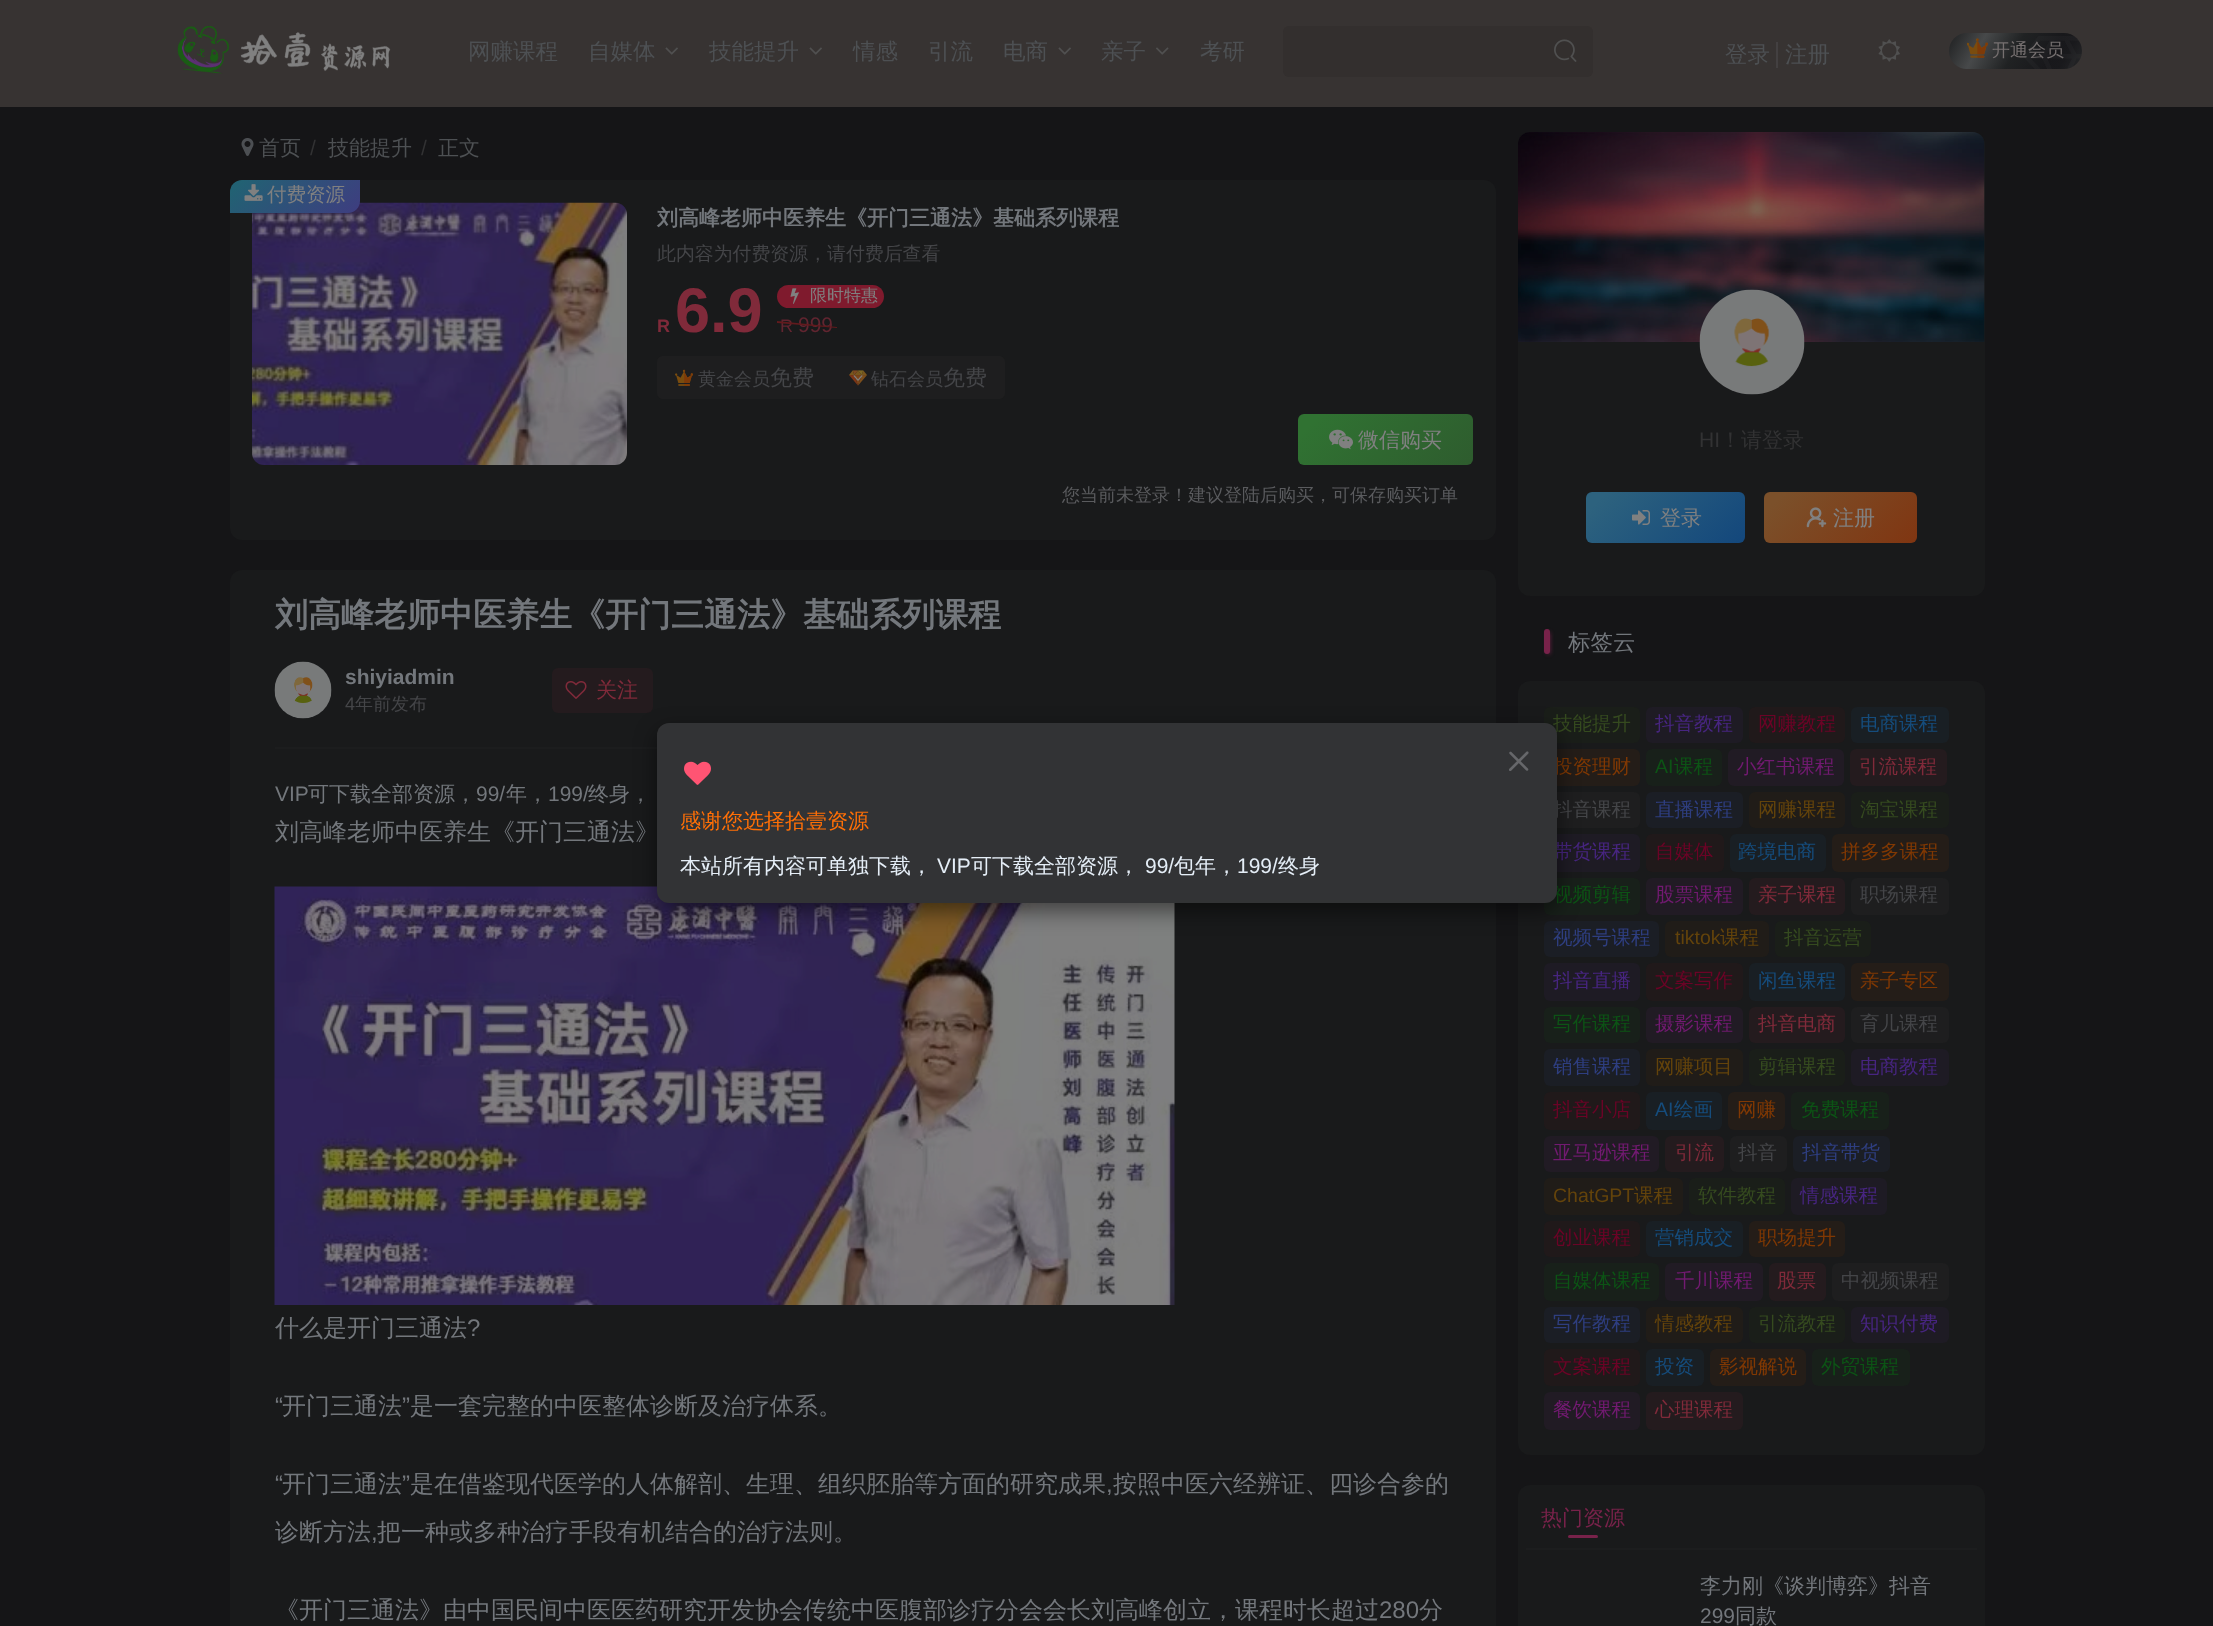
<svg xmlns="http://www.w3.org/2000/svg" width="2213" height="1626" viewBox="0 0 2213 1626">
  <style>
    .t1 { font: 500 22.5px WenQuanYi Zen Hei; fill: #4d5053; }
    .t2 { font: 500 18px WenQuanYi Zen Hei; fill: #767070; }
    .t3 { font: 500 21px WenQuanYi Zen Hei; fill: #4d5053; }
    .t4 { font: 21px Liberation Sans; fill: #323233; }
    .t5 { font: 500 19.5px WenQuanYi Zen Hei; fill: #808080; }
    .t6 { font: bold 21px WenQuanYi Zen Hei; fill: #73777c; }
    .t7 { font: 500 18.9px WenQuanYi Zen Hei; fill: #444548; }
    .t8 { font: bold 18px Liberation Sans; fill: #802a3a; }
    .t9 { font: bold 63px Liberation Sans; fill: #802a3a; }
    .t10 { font: 500 17px WenQuanYi Zen Hei; fill: #808080; }
    .t11 { font: 18px Liberation Sans; fill: #612530; }
    .t12 { font: 21px Liberation Sans; fill: #612530; }
    .t13 { font: 500 18px WenQuanYi Zen Hei; fill: #444548; }
    .t14 { font: 500 22px WenQuanYi Zen Hei; fill: #444548; }
    .t15 { font: 500 21px WenQuanYi Zen Hei; fill: #808080; }
    .t16 { font: 500 18px WenQuanYi Zen Hei; fill: #5a5b5e; }
    .t17 { font: bold 33px WenQuanYi Zen Hei; fill: #73777c; }
    .t18 { font: bold 21px Liberation Sans; fill: #73777c; }
    .t19 { font: 18px Liberation Sans; fill: #444548; }
    .t20 { font: 500 21px WenQuanYi Zen Hei; fill: #802a3a; }
    .t21 { font: 21px Liberation Sans; fill: #73777c; }
    .t22 { font: 500 21px WenQuanYi Zen Hei; fill: #73777c; }
    .t23 { font: 500 24px WenQuanYi Zen Hei; fill: #73777c; }
    .t24 { font: 24px Liberation Sans; fill: #73777c; }
    .t25 { font: 500 21px WenQuanYi Zen Hei; fill: #323233; }
    .t26 { font: 500 22.5px WenQuanYi Zen Hei; fill: #73777c; }
    .t27 { font: 500 19.5px WenQuanYi Zen Hei; fill: #354a1f; }
    .t28 { font: 500 19.5px WenQuanYi Zen Hei; fill: #472580; }
    .t29 { font: 500 19.5px WenQuanYi Zen Hei; fill: #6b0326; }
    .t30 { font: 500 19.5px WenQuanYi Zen Hei; fill: #154c7c; }
    .t31 { font: 500 19.5px WenQuanYi Zen Hei; fill: #803803; }
    .t32 { font: 19.5px Liberation Sans; fill: #0c5315; }
    .t33 { font: 500 19.5px WenQuanYi Zen Hei; fill: #0c5315; }
    .t34 { font: 500 19.5px WenQuanYi Zen Hei; fill: #721a71; }
    .t35 { font: 500 19.5px WenQuanYi Zen Hei; fill: #802a3a; }
    .t36 { font: 500 19.5px WenQuanYi Zen Hei; fill: #444548; }
    .t37 { font: 500 19.5px WenQuanYi Zen Hei; fill: #2e3e80; }
    .t38 { font: 500 19.5px WenQuanYi Zen Hei; fill: #63430b; }
    .t39 { font: 19.5px Liberation Sans; fill: #63430b; }
    .t40 { font: 19.5px Liberation Sans; fill: #154c7c; }
    .t41 { font: 500 21px WenQuanYi Zen Hei; fill: #78224a; }
    .t42 { font: 500 21px WenQuanYi Zen Hei; fill: #ff6f06; }
    .t43 { font: 500 21px WenQuanYi Zen Hei; fill: #e5eef7; }
    .t44 { font: 21px Liberation Sans; fill: #e5eef7; }
  </style>
  <defs>
    <linearGradient id="g1" gradientUnits="userSpaceOnUse" x1="2073" y1="84" x2="1957" y2="18"><stop offset="0" stop-color="#262729"/><stop offset="0.15" stop-color="#19191c"/><stop offset="0.25" stop-color="#18181b"/><stop offset="0.5" stop-color="#202223"/><stop offset="0.75" stop-color="#47494a"/><stop offset="1" stop-color="#1e1f20"/></linearGradient>
    <clipPath id="clip1"><rect x="230" y="180" width="1266" height="360" rx="12"/></clipPath>
    <linearGradient id="g2" gradientUnits="userSpaceOnUse" x1="253" y1="153" x2="336" y2="236"><stop offset="0.1" stop-color="#226173"/><stop offset="1" stop-color="#3e3d80"/></linearGradient>
    <linearGradient id="g3" gradientUnits="userSpaceOnUse" x1="1329" y1="383" x2="1442" y2="496"><stop offset="0.1" stop-color="#307232"/><stop offset="1" stop-color="#2e5c2e"/></linearGradient>
    <linearGradient id="g4" gradientUnits="userSpaceOnUse" x1="1613" y1="465" x2="1718" y2="570"><stop offset="0.1" stop-color="#2d627e"/><stop offset="1" stop-color="#13477c"/></linearGradient>
    <linearGradient id="g5" gradientUnits="userSpaceOnUse" x1="1790" y1="467" x2="1892" y2="569"><stop offset="0.1" stop-color="#7b502a"/><stop offset="1" stop-color="#803511"/></linearGradient>
  </defs>
  <rect width="100%" height="100%" fill="#151517"/>
  <rect x="0" y="0" width="2213" height="107" fill="#373332"/>
  <image x="177" y="25" width="214" height="49" href="images/1.png"/>
  <text x="468" y="59" class="t1">网赚课程</text>
  <text x="588" y="59" class="t1">自媒体</text>
  <image x="665" y="47" width="13" height="8" href="images/2.png"/>
  <text x="709" y="59" class="t1">技能提升</text>
  <image x="809" y="47" width="13" height="8" href="images/2.png"/>
  <text x="853" y="59" class="t1">情感</text>
  <text x="928" y="59" class="t1">引流</text>
  <text x="1003" y="59" class="t1">电商</text>
  <image x="1058" y="47" width="13" height="8" href="images/2.png"/>
  <text x="1101" y="59" class="t1">亲子</text>
  <image x="1156" y="47" width="13" height="8" href="images/3.png"/>
  <text x="1200" y="59" class="t1">考研</text>
  <rect x="1283" y="26" width="310" height="51" rx="6" fill="#332f2e"/>
  <image x="1554" y="39" width="23" height="23" href="images/4.png"/>
  <text x="1725" y="62" class="t1">登录</text>
  <rect x="1776" y="42" width="2" height="26" fill="#434041"/>
  <text x="1785" y="62" class="t1">注册</text>
  <image x="1878" y="39" width="22" height="23" href="images/5.png"/>
  <rect x="1949" y="33" width="133" height="36" rx="18" fill="url(#g1)"/>
  <image x="1967" y="38" width="21" height="20" href="images/6.png"/>
  <text x="1992" y="56" class="t2">开通会员</text>
  <image x="2024" y="36" width="58" height="33" href="images/7.png"/>
  <image x="241" y="138" width="13" height="18" href="images/8.png"/>
  <text x="259" y="155" class="t3">首页</text>
  <text x="310" y="155" class="t4">/</text>
  <text x="328" y="155" class="t3">技能提升</text>
  <text x="421" y="155" class="t4">/</text>
  <text x="438" y="155" class="t3">正文</text>
  <rect x="230" y="180" width="1266" height="360" rx="12" fill="#191a1b"/>
  <image x="252" y="202" width="375" height="263" href="images/10.png"/>
  <g clip-path="url(#clip1)">
    <path d="M242 177H360V201C360 207.5 354.5 213 348 213H230V189C230 182.5 235.5 177 242 177Z" fill="url(#g2)"/>
  </g>
  <image x="244" y="184" width="19" height="17" href="images/9.png"/>
  <text x="267" y="201" class="t5">付费资源</text>
  <text x="657" y="225" class="t6">刘高峰老师中医养生《开门三通法》基础系列课程</text>
  <text x="657" y="260" class="t7">此内容为付费资源，请付费后查看</text>
  <text x="657" y="332" class="t8">R</text>
  <text x="675" y="332" class="t9">6.9</text>
  <rect x="777" y="285" width="107" height="23" rx="11.5" fill="#7f1a2d"/>
  <image x="790" y="288" width="9" height="16" href="images/11.png"/>
  <text x="810" y="301" class="t10">限时特惠</text>
  <text x="780" y="332" class="t11">R</text>
  <text x="798" y="332" class="t12">999</text>
  <path d="M777 321L837 327V328L777 323Z" fill="#611a1d"/>
  <path d="M663 356H831V399H663C659.5 399 657 396.5 657 393V362C657 358.5 659.5 356 663 356Z" fill="#1e1e1f"/>
  <image x="675" y="369" width="18" height="17" href="images/12.png"/>
  <text x="698" y="385" class="t13">黄金会员</text>
  <text x="770" y="385" class="t14">免费</text>
  <path d="M831 356H999C1002.5 356 1005 358.5 1005 362V393C1005 396.5 1002.5 399 999 399H831Z" fill="#1e1e1f"/>
  <image x="849" y="370" width="18" height="16" href="images/13.png"/>
  <text x="871" y="385" class="t13">钻石会员</text>
  <text x="943" y="385" class="t14">免费</text>
  <rect x="1298" y="414" width="175" height="51" rx="6" fill="url(#g3)"/>
  <image x="1329" y="429" width="24" height="21" href="images/14.png"/>
  <text x="1358" y="447" class="t15">微信购买</text>
  <text x="1062" y="501" class="t16">您当前未登录！建议登陆后购买，可保存购买订单</text>
  <rect x="230" y="570" width="1266" height="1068" rx="12" fill="#191a1b"/>
  <text x="275" y="626" class="t17">刘高峰老师中医养生《开门三通法》基础系列课程</text>
  <image x="274" y="661" width="58" height="58" href="images/15.png"/>
  <text x="345" y="684" class="t18">shiyiadmin</text>
  <text x="345" y="710" class="t19">4</text>
  <text x="355" y="710" class="t13">年前发布</text>
  <rect x="552" y="668" width="101" height="45" rx="6" fill="#241b1e"/>
  <image x="565" y="681" width="22" height="18" href="images/16.png"/>
  <text x="596" y="697" class="t20">关注</text>
  <rect x="275" y="747" width="382" height="2" fill="#1c1d1e"/>
  <text x="275" y="801" class="t21">VIP</text>
  <text x="308" y="801" class="t22">可下载全部资源，</text>
  <text x="476" y="801" class="t21">99/</text>
  <text x="506" y="801" class="t22">年，</text>
  <text x="548" y="801" class="t21">199/</text>
  <text x="588" y="801" class="t22">终身，</text>
  <text x="275" y="840" class="t23">刘高峰老师中医养生《开门三通法》</text>
  <image x="274" y="886" width="901" height="419" href="images/17.png"/>
  <text x="275" y="1336" class="t23">什么是开门三通法</text>
  <text x="467" y="1336" class="t24">?</text>
  <text x="275" y="1414" class="t24">“</text>
  <text x="282" y="1414" class="t23">开门三通法</text>
  <text x="402" y="1414" class="t24">”</text>
  <text x="410" y="1414" class="t23">是一套完整的中医整体诊断及治疗体系。</text>
  <text x="275" y="1492" class="t24">“</text>
  <text x="282" y="1492" class="t23">开门三通法</text>
  <text x="402" y="1492" class="t24">”</text>
  <text x="410" y="1492" class="t23">是在借鉴现代医学的人体解剖、生理、组织胚胎等方面的研究成果</text>
  <text x="1113" y="1492" class="t23">按照中医六经辨证、四诊合参的</text>
  <text x="1106" y="1492" class="t24">,</text>
  <text x="275" y="1540" class="t23">诊断方法</text>
  <text x="371" y="1540" class="t24">,</text>
  <text x="377" y="1540" class="t23">把一种或多种治疗手段有机结合的治疗法则。</text>
  <text x="275" y="1618" class="t23">《开门三通法》由中国民间中医医药研究开发协会传统中医腹部诊疗分会会长刘高峰创立，课程时长超过</text>
  <text x="1379" y="1618" class="t24">280</text>
  <text x="1419" y="1618" class="t23">分</text>
  <rect x="1518" y="132" width="467" height="464" rx="12" fill="#191a1b"/>
  <image x="1518" y="132" width="467" height="210" href="images/18.png"/>
  <image x="1699" y="289" width="106" height="106" href="images/19.png"/>
  <text x="1699" y="447" class="t4">HI</text>
  <text x="1720" y="447" class="t25">！请登录</text>
  <rect x="1586" y="492" width="159" height="51" rx="6" fill="url(#g4)"/>
  <image x="1632" y="510" width="18" height="15" href="images/20.png"/>
  <text x="1660" y="525" class="t15">登录</text>
  <rect x="1764" y="492" width="153" height="51" rx="6" fill="url(#g5)"/>
  <image x="1806" y="507" width="21" height="21" href="images/21.png"/>
  <text x="1833" y="525" class="t15">注册</text>
  <rect x="1547" y="632" width="3" height="22" rx="1.5" fill="#78224a" filter="blur(2px)"/>
  <rect x="1544" y="629" width="6" height="25" rx="3" fill="#78224a"/>
  <text x="1568" y="650" class="t26">标签云</text>
  <rect x="1518" y="681" width="467" height="774" rx="12" fill="#191a1b"/>
  <rect x="1544" y="707" width="96" height="36" rx="6" fill="#1a1e19"/>
  <text x="1553" y="730" class="t27">技能提升</text>
  <rect x="1646" y="707" width="97" height="36" rx="6" fill="#1e1b24"/>
  <text x="1655" y="730" class="t28">抖音教程</text>
  <rect x="1749" y="707" width="96" height="36" rx="6" fill="#20191a"/>
  <text x="1758" y="730" class="t29">网赚教程</text>
  <rect x="1851" y="707" width="98" height="36" rx="6" fill="#191f24"/>
  <text x="1860" y="730" class="t30">电商课程</text>
  <rect x="1544" y="749" width="96" height="37" rx="6" fill="#241d18"/>
  <text x="1553" y="773" class="t31">投资理财</text>
  <rect x="1646" y="749" width="76" height="37" rx="6" fill="#18201a"/>
  <text x="1655" y="773" class="t32">AI</text>
  <text x="1674" y="773" class="t33">课程</text>
  <rect x="1728" y="749" width="116" height="37" rx="6" fill="#211b24"/>
  <text x="1737" y="773" class="t34">小红书课程</text>
  <rect x="1850" y="749" width="97" height="37" rx="6" fill="#241b1e"/>
  <text x="1859" y="773" class="t35">引流课程</text>
  <rect x="1544" y="792" width="96" height="36" rx="6" fill="#1e1e1f"/>
  <text x="1553" y="816" class="t36">抖音课程</text>
  <rect x="1646" y="792" width="97" height="36" rx="6" fill="#1b1e25"/>
  <text x="1655" y="816" class="t37">直播课程</text>
  <rect x="1749" y="792" width="96" height="36" rx="6" fill="#201c18"/>
  <text x="1758" y="816" class="t38">网赚课程</text>
  <rect x="1851" y="792" width="98" height="36" rx="6" fill="#1a1e19"/>
  <text x="1860" y="816" class="t27">淘宝课程</text>
  <rect x="1544" y="834" width="96" height="38" rx="6" fill="#1e1b24"/>
  <text x="1553" y="858" class="t28">带货课程</text>
  <rect x="1646" y="834" width="78" height="38" rx="6" fill="#20191a"/>
  <text x="1655" y="858" class="t29">自媒体</text>
  <rect x="1730" y="834" width="96" height="38" rx="6" fill="#191f24"/>
  <text x="1738" y="858" class="t30">跨境电商</text>
  <rect x="1832" y="834" width="117" height="38" rx="6" fill="#241d18"/>
  <text x="1841" y="858" class="t31">拼多多课程</text>
  <rect x="1544" y="878" width="96" height="37" rx="6" fill="#18201a"/>
  <text x="1553" y="901" class="t33">视频剪辑</text>
  <rect x="1646" y="878" width="97" height="37" rx="6" fill="#211b24"/>
  <text x="1655" y="901" class="t34">股票课程</text>
  <rect x="1749" y="878" width="96" height="37" rx="6" fill="#241b1e"/>
  <text x="1758" y="901" class="t35">亲子课程</text>
  <rect x="1851" y="878" width="98" height="37" rx="6" fill="#1e1e1f"/>
  <text x="1860" y="901" class="t36">职场课程</text>
  <rect x="1544" y="921" width="115" height="36" rx="6" fill="#1b1e25"/>
  <text x="1553" y="944" class="t37">视频号课程</text>
  <rect x="1665" y="921" width="104" height="36" rx="6" fill="#201c18"/>
  <text x="1675" y="944" class="t39">tiktok</text>
  <text x="1720" y="944" class="t38">课程</text>
  <rect x="1775" y="921" width="96" height="36" rx="6" fill="#1a1e19"/>
  <text x="1784" y="944" class="t27">抖音运营</text>
  <rect x="1544" y="963" width="96" height="38" rx="6" fill="#1e1b24"/>
  <text x="1553" y="987" class="t28">抖音直播</text>
  <rect x="1646" y="963" width="97" height="38" rx="6" fill="#20191a"/>
  <text x="1655" y="987" class="t29">文案写作</text>
  <rect x="1749" y="963" width="96" height="38" rx="6" fill="#191f24"/>
  <text x="1758" y="987" class="t30">闲鱼课程</text>
  <rect x="1851" y="963" width="98" height="38" rx="6" fill="#241d18"/>
  <text x="1860" y="987" class="t31">亲子专区</text>
  <rect x="1544" y="1007" width="96" height="36" rx="6" fill="#18201a"/>
  <text x="1553" y="1030" class="t33">写作课程</text>
  <rect x="1646" y="1007" width="97" height="36" rx="6" fill="#211b24"/>
  <text x="1655" y="1030" class="t34">摄影课程</text>
  <rect x="1749" y="1007" width="96" height="36" rx="6" fill="#241b1e"/>
  <text x="1758" y="1030" class="t35">抖音电商</text>
  <rect x="1851" y="1007" width="98" height="36" rx="6" fill="#1e1e1f"/>
  <text x="1860" y="1030" class="t36">育儿课程</text>
  <rect x="1544" y="1049" width="96" height="37" rx="6" fill="#1b1e25"/>
  <text x="1553" y="1073" class="t37">销售课程</text>
  <rect x="1646" y="1049" width="97" height="37" rx="6" fill="#201c18"/>
  <text x="1655" y="1073" class="t38">网赚项目</text>
  <rect x="1749" y="1049" width="96" height="37" rx="6" fill="#1a1e19"/>
  <text x="1758" y="1073" class="t27">剪辑课程</text>
  <rect x="1851" y="1049" width="98" height="37" rx="6" fill="#1e1b24"/>
  <text x="1860" y="1073" class="t28">电商教程</text>
  <rect x="1544" y="1092" width="96" height="38" rx="6" fill="#20191a"/>
  <text x="1553" y="1116" class="t29">抖音小店</text>
  <rect x="1646" y="1092" width="76" height="38" rx="6" fill="#191f24"/>
  <text x="1655" y="1116" class="t40">AI</text>
  <text x="1674" y="1116" class="t30">绘画</text>
  <rect x="1728" y="1092" width="57" height="38" rx="6" fill="#241d18"/>
  <text x="1737" y="1116" class="t31">网赚</text>
  <rect x="1791" y="1092" width="98" height="38" rx="6" fill="#18201a"/>
  <text x="1801" y="1116" class="t33">免费课程</text>
  <rect x="1544" y="1136" width="115" height="36" rx="6" fill="#211b24"/>
  <text x="1553" y="1159" class="t34">亚马逊课程</text>
  <rect x="1665" y="1136" width="59" height="36" rx="6" fill="#241b1e"/>
  <text x="1675" y="1159" class="t35">引流</text>
  <rect x="1730" y="1136" width="57" height="36" rx="6" fill="#1e1e1f"/>
  <text x="1738" y="1159" class="t36">抖音</text>
  <rect x="1793" y="1136" width="97" height="36" rx="6" fill="#1b1e25"/>
  <text x="1802" y="1159" class="t37">抖音带货</text>
  <rect x="1544" y="1178" width="139" height="37" rx="6" fill="#201c18"/>
  <text x="1553" y="1202" class="t39">ChatGPT</text>
  <text x="1634" y="1202" class="t38">课程</text>
  <rect x="1689" y="1178" width="96" height="37" rx="6" fill="#1a1e19"/>
  <text x="1698" y="1202" class="t27">软件教程</text>
  <rect x="1791" y="1178" width="96" height="37" rx="6" fill="#1e1b24"/>
  <text x="1800" y="1202" class="t28">情感课程</text>
  <rect x="1544" y="1221" width="96" height="36" rx="6" fill="#20191a"/>
  <text x="1553" y="1244" class="t29">创业课程</text>
  <rect x="1646" y="1221" width="97" height="36" rx="6" fill="#191f24"/>
  <text x="1655" y="1244" class="t30">营销成交</text>
  <rect x="1749" y="1221" width="96" height="36" rx="6" fill="#241d18"/>
  <text x="1758" y="1244" class="t31">职场提升</text>
  <rect x="1544" y="1263" width="115" height="38" rx="6" fill="#18201a"/>
  <text x="1553" y="1287" class="t33">自媒体课程</text>
  <rect x="1665" y="1263" width="98" height="38" rx="6" fill="#211b24"/>
  <text x="1675" y="1287" class="t34">千川课程</text>
  <rect x="1769" y="1263" width="57" height="38" rx="6" fill="#241b1e"/>
  <text x="1777" y="1287" class="t35">股票</text>
  <rect x="1832" y="1263" width="117" height="38" rx="6" fill="#1e1e1f"/>
  <text x="1841" y="1287" class="t36">中视频课程</text>
  <rect x="1544" y="1307" width="96" height="36" rx="6" fill="#1b1e25"/>
  <text x="1553" y="1330" class="t37">写作教程</text>
  <rect x="1646" y="1307" width="97" height="36" rx="6" fill="#201c18"/>
  <text x="1655" y="1330" class="t38">情感教程</text>
  <rect x="1749" y="1307" width="96" height="36" rx="6" fill="#1a1e19"/>
  <text x="1758" y="1330" class="t27">引流教程</text>
  <rect x="1851" y="1307" width="98" height="36" rx="6" fill="#1e1b24"/>
  <text x="1860" y="1330" class="t28">知识付费</text>
  <rect x="1544" y="1349" width="96" height="37" rx="6" fill="#20191a"/>
  <text x="1553" y="1373" class="t29">文案课程</text>
  <rect x="1646" y="1349" width="58" height="37" rx="6" fill="#191f24"/>
  <text x="1655" y="1373" class="t30">投资</text>
  <rect x="1710" y="1349" width="96" height="37" rx="6" fill="#241d18"/>
  <text x="1719" y="1373" class="t31">影视解说</text>
  <rect x="1812" y="1349" width="98" height="37" rx="6" fill="#18201a"/>
  <text x="1821" y="1373" class="t33">外贸课程</text>
  <rect x="1544" y="1392" width="96" height="38" rx="6" fill="#211b24"/>
  <text x="1553" y="1416" class="t34">餐饮课程</text>
  <rect x="1646" y="1392" width="97" height="38" rx="6" fill="#241b1e"/>
  <text x="1655" y="1416" class="t35">心理课程</text>
  <rect x="1518" y="1485" width="467" height="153" rx="12" fill="#191a1b"/>
  <rect x="1526" y="1548" width="451" height="2" fill="#1c1d1e"/>
  <text x="1541" y="1525" class="t41">热门资源</text>
  <rect x="1568" y="1535" width="30" height="3" rx="1.5" fill="#78224a"/>
  <text x="1700" y="1593" class="t22">李力刚《谈判博弈》抖音</text>
  <text x="1700" y="1623" class="t21">299</text>
  <text x="1735" y="1623" class="t22">同款</text>
  <rect x="657" y="731" width="900" height="180" rx="12" fill="#00000080" filter="blur(11px)"/>
  <rect x="657" y="723" width="900" height="180" rx="12" fill="#323335"/>
  <image x="684" y="761" width="27" height="24" href="images/22.png"/>
  <image x="1509" y="751" width="20" height="20" href="images/23.png"/>
  <text x="680" y="828" class="t42">感谢您选择拾壹资源</text>
  <text x="680" y="873" class="t43">本站所有内容可单独下载，</text>
  <text x="937" y="873" class="t44">VIP</text>
  <text x="971" y="873" class="t43">可下载全部资源，</text>
  <text x="1145" y="873" class="t44">99/</text>
  <text x="1174" y="873" class="t43">包年，</text>
  <text x="1237" y="873" class="t44">199/</text>
  <text x="1278" y="873" class="t43">终身</text>
</svg>
